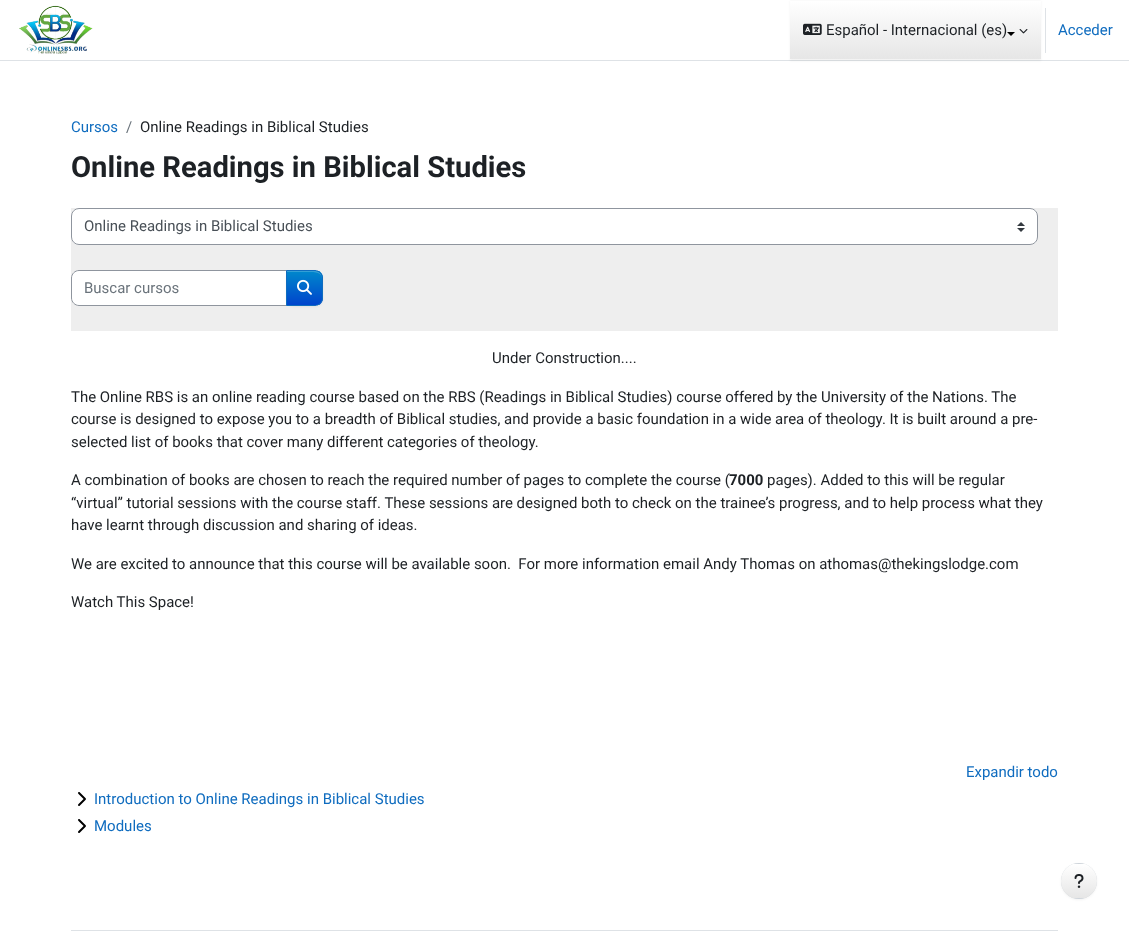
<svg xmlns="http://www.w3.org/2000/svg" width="1129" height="931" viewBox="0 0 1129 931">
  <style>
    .t1 { font: 14.97px Roboto; fill: #1d2125; }
    .t2 { font: 14.97px Roboto; fill: #0f6cbf; }
    .t3 { font: 14.97px Roboto; fill: #6a737b; }
    .t4 { font: bold 29.2px Roboto; fill: #1d2125; }
    .t5 { font: 14.97px Roboto; fill: #495057; }
    .t6 { font: bold 14.97px Roboto; fill: #1d2125; }
    .t7 { font: 15px Roboto; fill: #0f6cbf; }
  </style>
  <defs>
    <linearGradient id="g1" gradientUnits="userSpaceOnUse" x1="916" y1="1" x2="916" y2="59"><stop offset="0" stop-color="#fff"/><stop offset="1" stop-color="#e6e6e6"/></linearGradient>
    <clipPath id="clip1"><path d="M286 270H315C319.5 270 323 273.5 323 278V298C323 302.5 319.5 306 315 306H286Z"/></clipPath>
    <linearGradient id="g2" gradientUnits="userSpaceOnUse" x1="305" y1="271" x2="305" y2="305"><stop offset="0" stop-color="#08c"/><stop offset="1" stop-color="#04c"/></linearGradient>
    <clipPath id="clip2"><rect x="1061" y="863" width="36" height="36" rx="18"/></clipPath>
    <linearGradient id="g3" gradientUnits="userSpaceOnUse" x1="1079" y1="864" x2="1079" y2="898"><stop offset="0" stop-color="#fff"/><stop offset="1" stop-color="#e6e6e6"/></linearGradient>
  </defs>
  <rect width="100%" height="100%" fill="#fff"/>
  <rect x="0" y="60" width="1129" height="1" fill="#dee2e6"/>
  <image x="19" y="5" width="74" height="49" href="images/1.png"/>
  <rect x="790" y="1" width="251" height="60" fill="#0000000d" filter="blur(1px)"/>
  <rect x="790" y="1" width="251" height="58" fill="url(#g1)"/>
  <image x="803" y="23" width="19" height="12" href="images/2.png"/>
  <text x="826" y="35" class="t1">Español - Internacional (es)</text>
  <path d="M1007 32H1015L1011 36Z" fill="#000"/>
  <image x="1019" y="29" width="9" height="5" href="images/3.png"/>
  <rect x="1045" y="8" width="1" height="45" fill="#dee2e6"/>
  <text x="1058" y="35" class="t2">Acceder</text>
  <text x="71" y="132" class="t2">Cursos</text>
  <text x="126" y="132" class="t3">/</text>
  <text x="140" y="132" class="t1">Online Readings in Biblical Studies</text>
  <text x="71" y="177" class="t4">Online Readings in Biblical Studies</text>
  <rect x="71" y="208" width="987" height="123" fill="#eee"/>
  <rect x="71" y="208" width="967" height="37" rx="8" fill="#fff"/>
  <image x="1017" y="222" width="8" height="10" href="images/4.png"/>
  <rect x="71.5" y="208.5" width="966" height="36" rx="7.5" fill="none" stroke="#8f959e"/>
  <text x="84" y="231" class="t5">Online Readings in Biblical Studies</text>
  <path d="M79 270.5H286.5V305.5H79C75 305.5 71.5 302 71.5 298V278C71.5 274 75 270.5 79 270.5Z" fill="#fff" stroke="#8f959e"/>
  <text x="84" y="293" class="t3">Buscar cursos</text>
  <rect x="286" y="271" width="37" height="36" rx="8" fill="#0000000d" filter="blur(1px)"/>
  <g clip-path="url(#clip1)">
    <rect x="287" y="271" width="36" height="34" fill="url(#g2)"/>
  </g>
  <path d="M287 272H310C319.5 272 321.5 274 322 279.5C322 269 313 271 305.5 271H287Z" fill="#ffffff33"/>
  <path d="M286.5 270.5H315C319 270.5 322.5 274 322.5 278V298C322.5 302 319 305.5 315 305.5H286.5Z" fill="none" stroke="#0f6cbf"/>
  <image x="297" y="279" width="15" height="16" href="images/5.png"/>
  <text x="492" y="363" class="t1">Under Construction....</text>
  <text x="71" y="402" class="t1">The Online RBS is an online reading course based on the RBS (Readings in Biblical Studies) course offered by the University of the Nations. The</text>
  <text x="71" y="424" class="t1">course is designed to expose you to a breadth of Biblical studies, and provide a basic foundation in a wide area of theology. It is built around a pre-</text>
  <text x="71" y="447" class="t1">selected list of books that cover many different categories of theology.</text>
  <text x="71" y="485" class="t1">A combination of books are chosen to reach the required number of pages to complete the course (</text>
  <text x="729" y="485" class="t6">7000</text>
  <text x="767" y="485" class="t1">pages). Added to this will be regular</text>
  <text x="71" y="508" class="t1">“virtual” tutorial sessions with the course staff. These sessions are designed both to check on the trainee’s progress, and to help process what they</text>
  <text x="71" y="530" class="t1">have learnt through discussion and sharing of ideas.</text>
  <text x="71" y="569" class="t1" xml:space="preserve">We are excited to announce that this course will be available soon.  For more information email Andy Thomas on athomas@thekingslodge.com</text>
  <text x="71" y="607" class="t1">Watch This Space!</text>
  <text x="966" y="777" class="t2">Expandir todo</text>
  <image x="78" y="792" width="8" height="14" href="images/6.png"/>
  <text x="94" y="804" class="t7">Introduction to Online Readings in Biblical Studies</text>
  <image x="78" y="819" width="8" height="14" href="images/6.png"/>
  <text x="94" y="831" class="t7">Modules</text>
  <rect x="1061" y="864" width="36" height="36" rx="18" fill="#0000000d" filter="blur(1px)"/>
  <circle cx="1079" cy="881" r="18" fill="#ced4da"/>
  <g clip-path="url(#clip2)">
    <rect x="1061" y="864" width="36" height="34" fill="url(#g3)"/>
  </g>
  <image x="1074" y="874" width="10" height="14" href="images/7.png"/>
  <rect x="71" y="930" width="987" height="1" fill="#dee2e6"/>
</svg>
